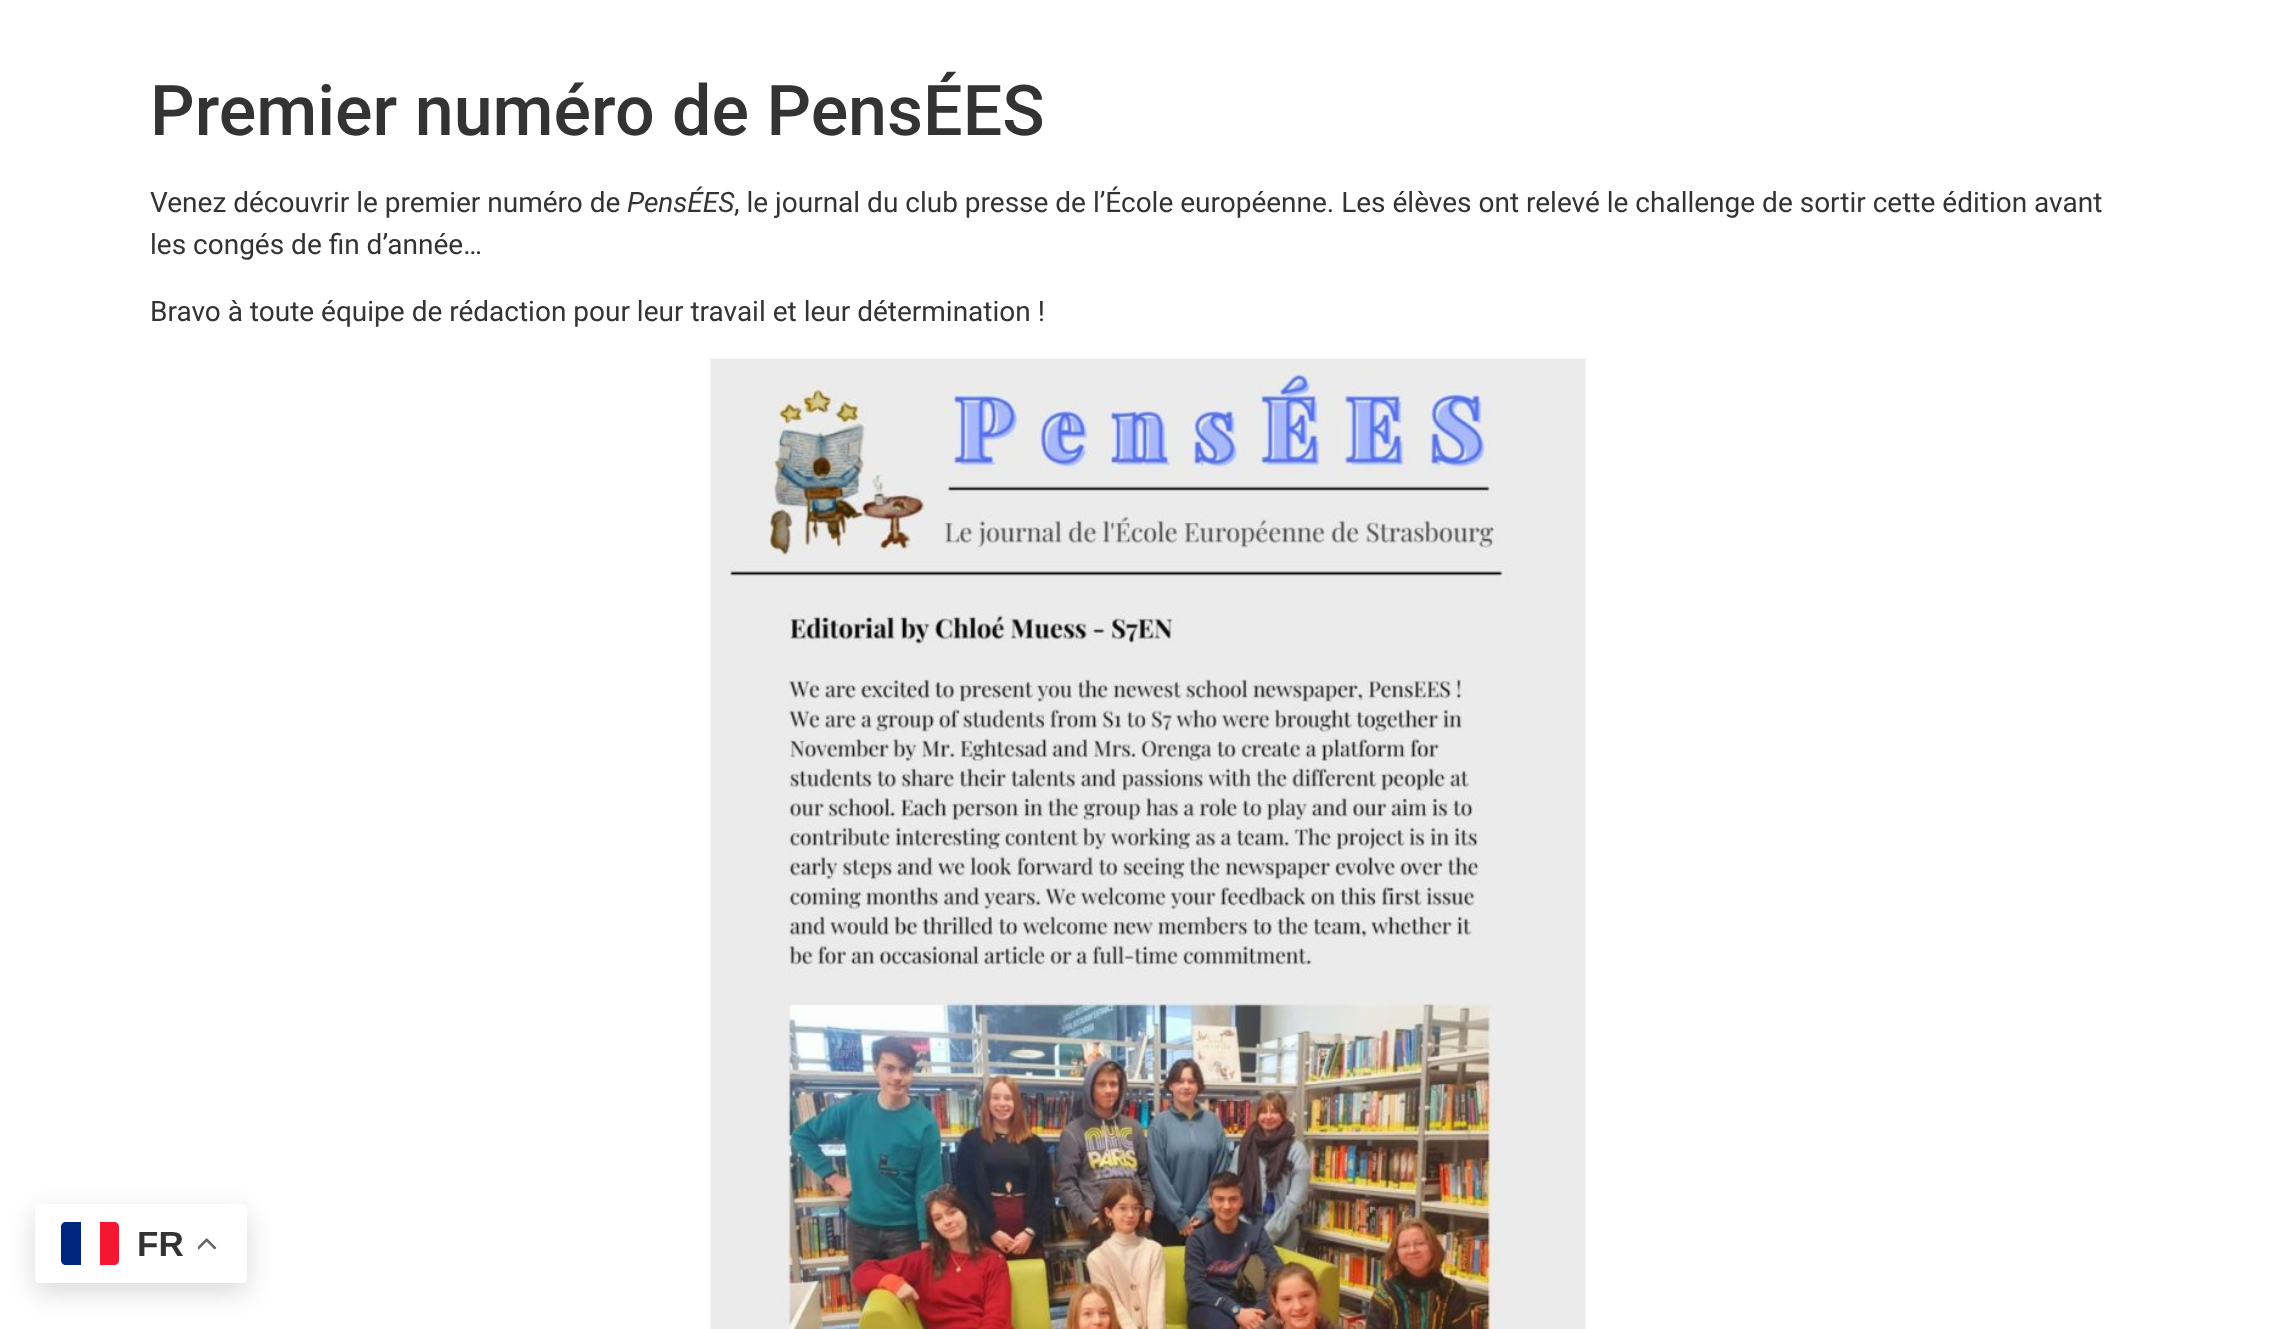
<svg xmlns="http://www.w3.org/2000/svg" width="2293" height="1329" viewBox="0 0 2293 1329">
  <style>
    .t1 { font: 500 70px Roboto; fill: #333; }
    .t2 { font: 28px Roboto; fill: #333; }
    .t3 { font: italic 28px Roboto; fill: #333; }
    .t4 { font: bold 35px Liberation Sans; fill: #333; }
  </style>
  <rect width="100%" height="100%" fill="#fff"/>
  <text x="150" y="135" class="t1">Premier numéro de PensÉES</text>
  <text x="150" y="212" class="t2">Venez découvrir le premier numéro de</text>
  <text x="627" y="212" class="t3">PensÉES</text>
  <text x="734" y="212" class="t2">, le journal du club presse de l’École européenne. Les élèves ont relevé le challenge de sortir cette édition avant</text>
  <text x="150" y="254" class="t2">les congés de fin d’année…</text>
  <text x="150" y="321" class="t2">Bravo à toute équipe de rédaction pour leur travail et leur détermination !</text>
  <image x="710" y="358" width="876" height="971" href="images/1.png"/>
  <rect x="35" y="1213" width="212" height="79" rx="4" fill="#00000026" filter="blur(13px)"/>
  <rect x="35" y="1204" width="212" height="79" rx="4" fill="#fff"/>
  <path d="M66 1222H81V1265H66C63 1265 61 1263 61 1260V1227C61 1224 63 1222 66 1222Z" fill="#00267f"/>
  <path d="M100 1222H114C117 1222 119 1224 119 1227V1260C119 1263 117 1265 114 1265H100Z" fill="#f31830"/>
  <text x="137" y="1256" class="t4">FR</text>
  <image x="198" y="1238" width="19" height="12" href="images/2.png"/>
</svg>
